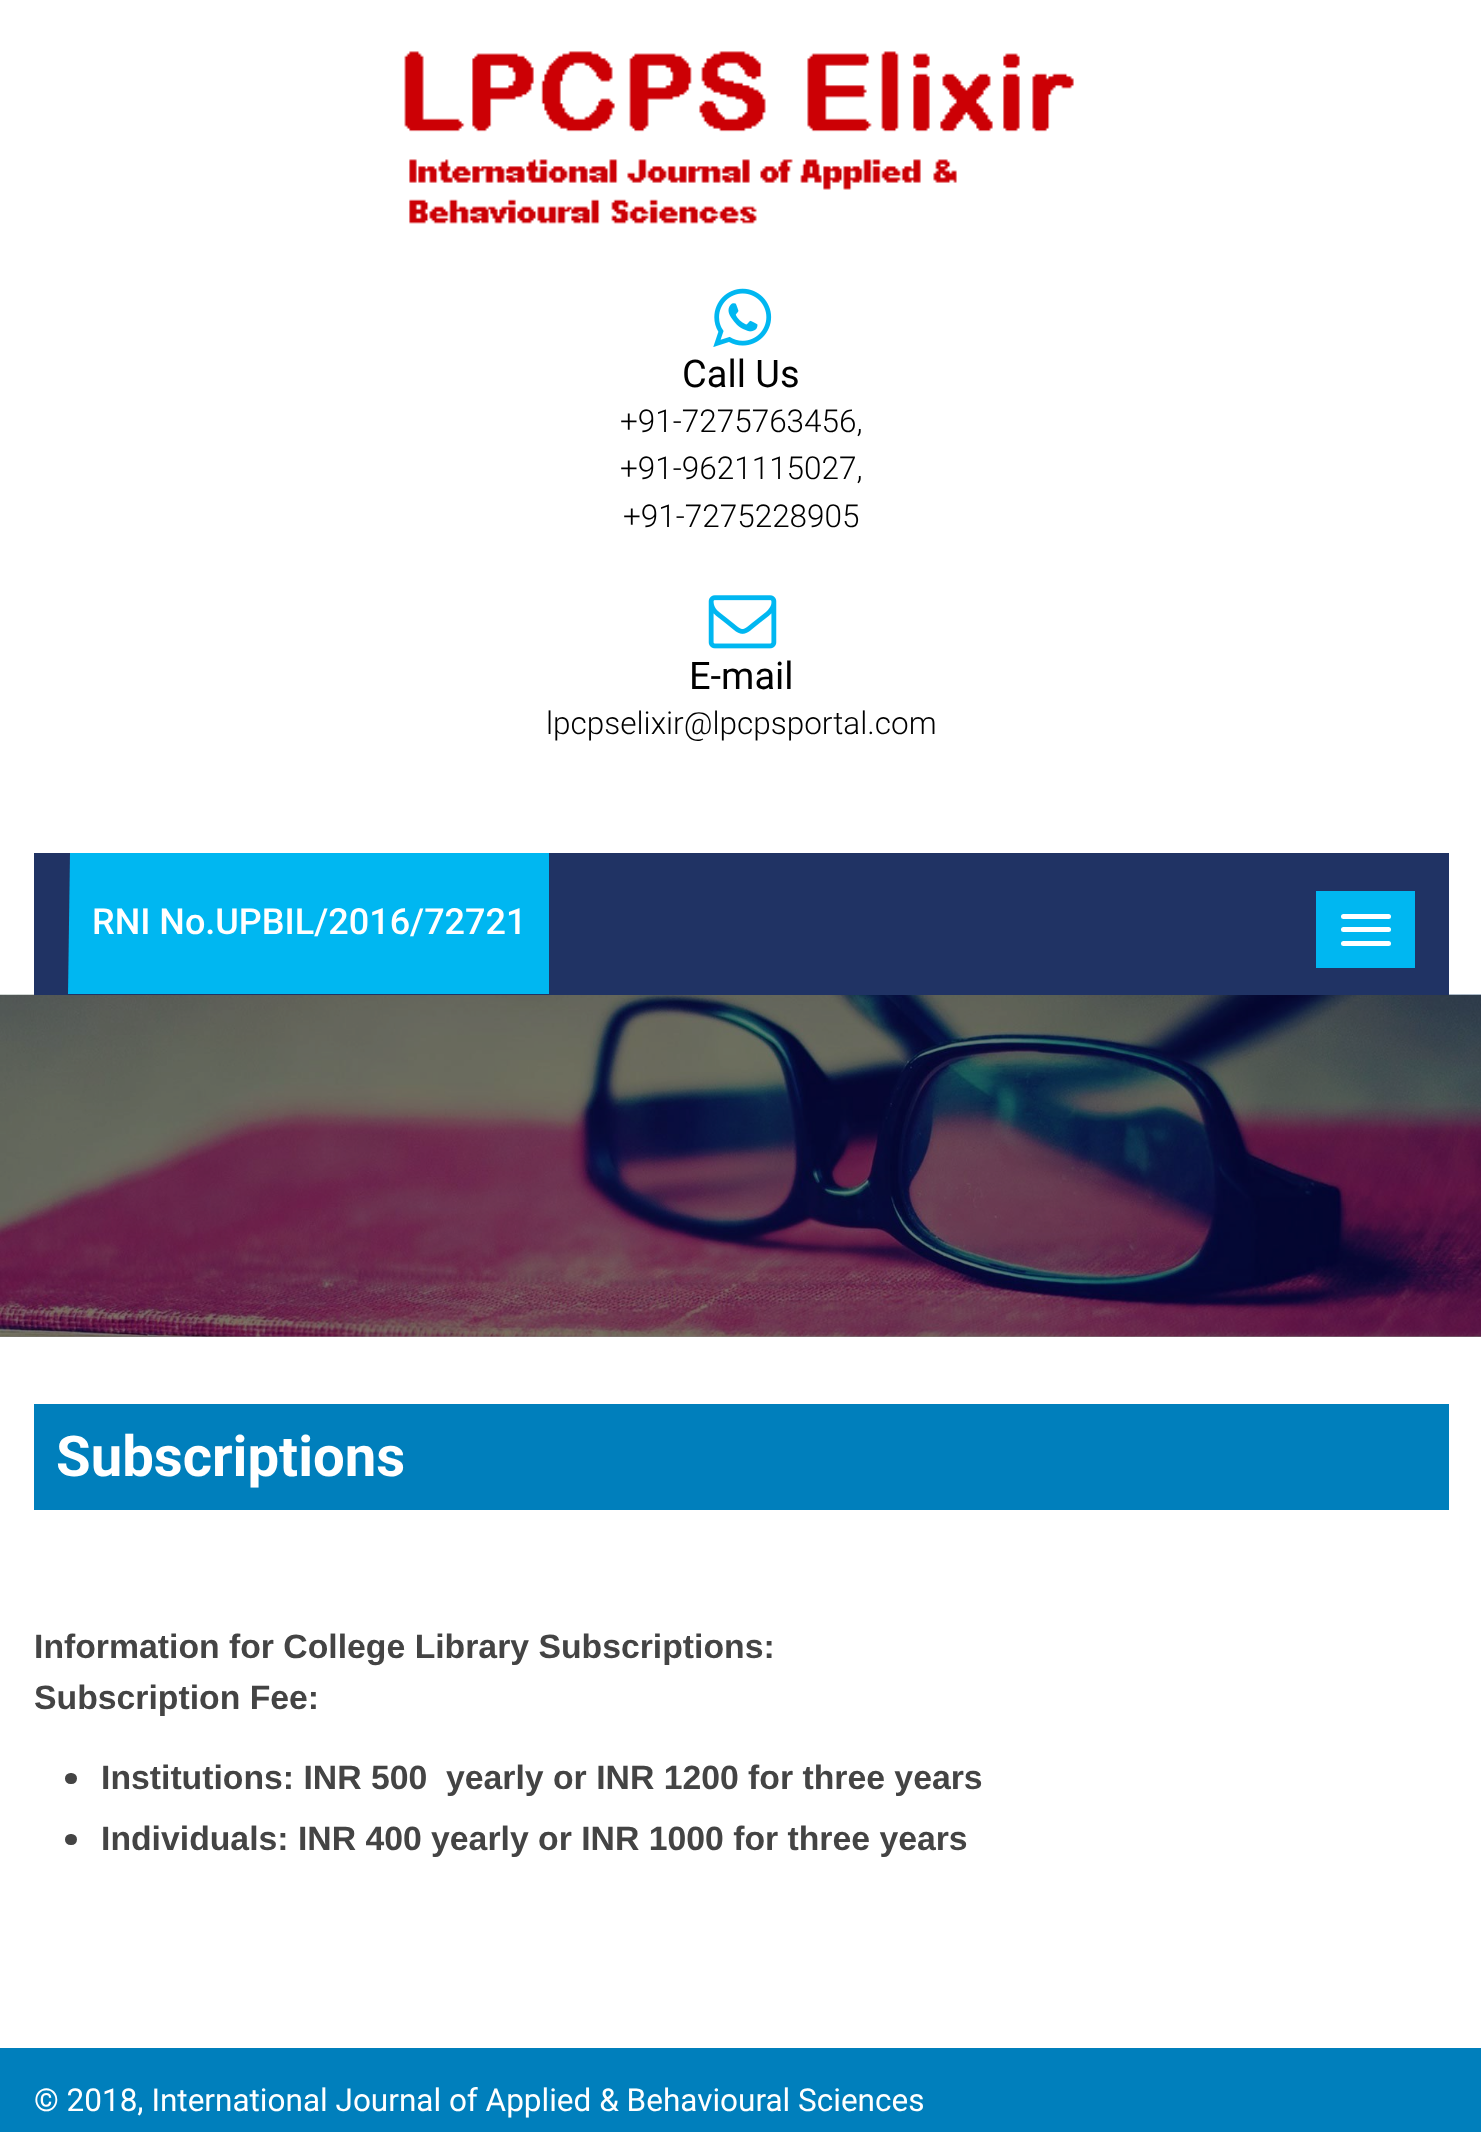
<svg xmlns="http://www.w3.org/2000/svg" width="1481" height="2132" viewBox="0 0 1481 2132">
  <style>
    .t1 { font: 38px Roboto; fill: #000; }
    .t2 { font: 300 31.5px Roboto; fill: #000; }
    .t3 { font: 500 36px Roboto; fill: #fff; }
    .t4 { font: bold 56.25px Roboto; fill: #fff; }
    .t5 { font: bold 33.75px Liberation Sans; fill: #444; }
    .t6 { font: 31.5px Roboto; fill: #fff; }
  </style>
  <rect width="100%" height="100%" fill="#fff"/>
  <rect x="0" y="1336" width="1481" height="1" fill="#808080"/>
  <image x="404" y="51" width="670" height="173" href="images/1.png"/>
  <image x="713" y="288" width="59" height="59" href="images/2.png"/>
  <text x="682" y="387" class="t1">Call Us</text>
  <text x="620" y="432" class="t2">+91-7275763456,</text>
  <text x="620" y="479" class="t2">+91-9621115027,</text>
  <text x="623" y="527" class="t2">+91-7275228905</text>
  <image x="708" y="595" width="69" height="54" href="images/3.png"/>
  <text x="689" y="689" class="t1">E-mail</text>
  <text x="546" y="734" class="t2">lpcpselixir@lpcpsportal.com</text>
  <image x="0" y="994" width="1481" height="343" href="images/4.png"/>
  <rect x="34" y="853" width="1415" height="142" fill="#203364"/>
  <path d="M549 994H68L70 853H549Z" fill="#00b7f1"/>
  <text x="92" y="934" class="t3">RNI No.UPBIL/2016/72721</text>
  <rect x="1316" y="891" width="99" height="77" fill="#00b7f1"/>
  <rect x="1341" y="914" width="50" height="5" rx="2.5" fill="#fff"/>
  <rect x="1341" y="927" width="50" height="5" rx="2.5" fill="#fff"/>
  <rect x="1341" y="941" width="50" height="5" rx="2.5" fill="#fff"/>
  <rect x="34" y="1404" width="1415" height="106" fill="#007fbc"/>
  <text x="56" y="1476" class="t4">Subscriptions</text>
  <text x="34" y="1658" class="t5">Information for College Library Subscriptions:</text>
  <text x="34" y="1709" class="t5">Subscription Fee:</text>
  <rect x="65" y="1773" width="12" height="11" rx="5.5" fill="#444"/>
  <text x="101" y="1789" class="t5" xml:space="preserve">Institutions: INR 500  yearly or INR 1200 for three years</text>
  <rect x="65" y="1834" width="12" height="11" rx="5.5" fill="#444"/>
  <text x="101" y="1850" class="t5">Individuals: INR 400 yearly or INR 1000 for three years</text>
  <rect x="0" y="2048" width="1481" height="84" fill="#007fbc"/>
  <text x="34" y="2111" class="t6">© 2018, International Journal of Applied &amp; Behavioural Sciences</text>
</svg>
